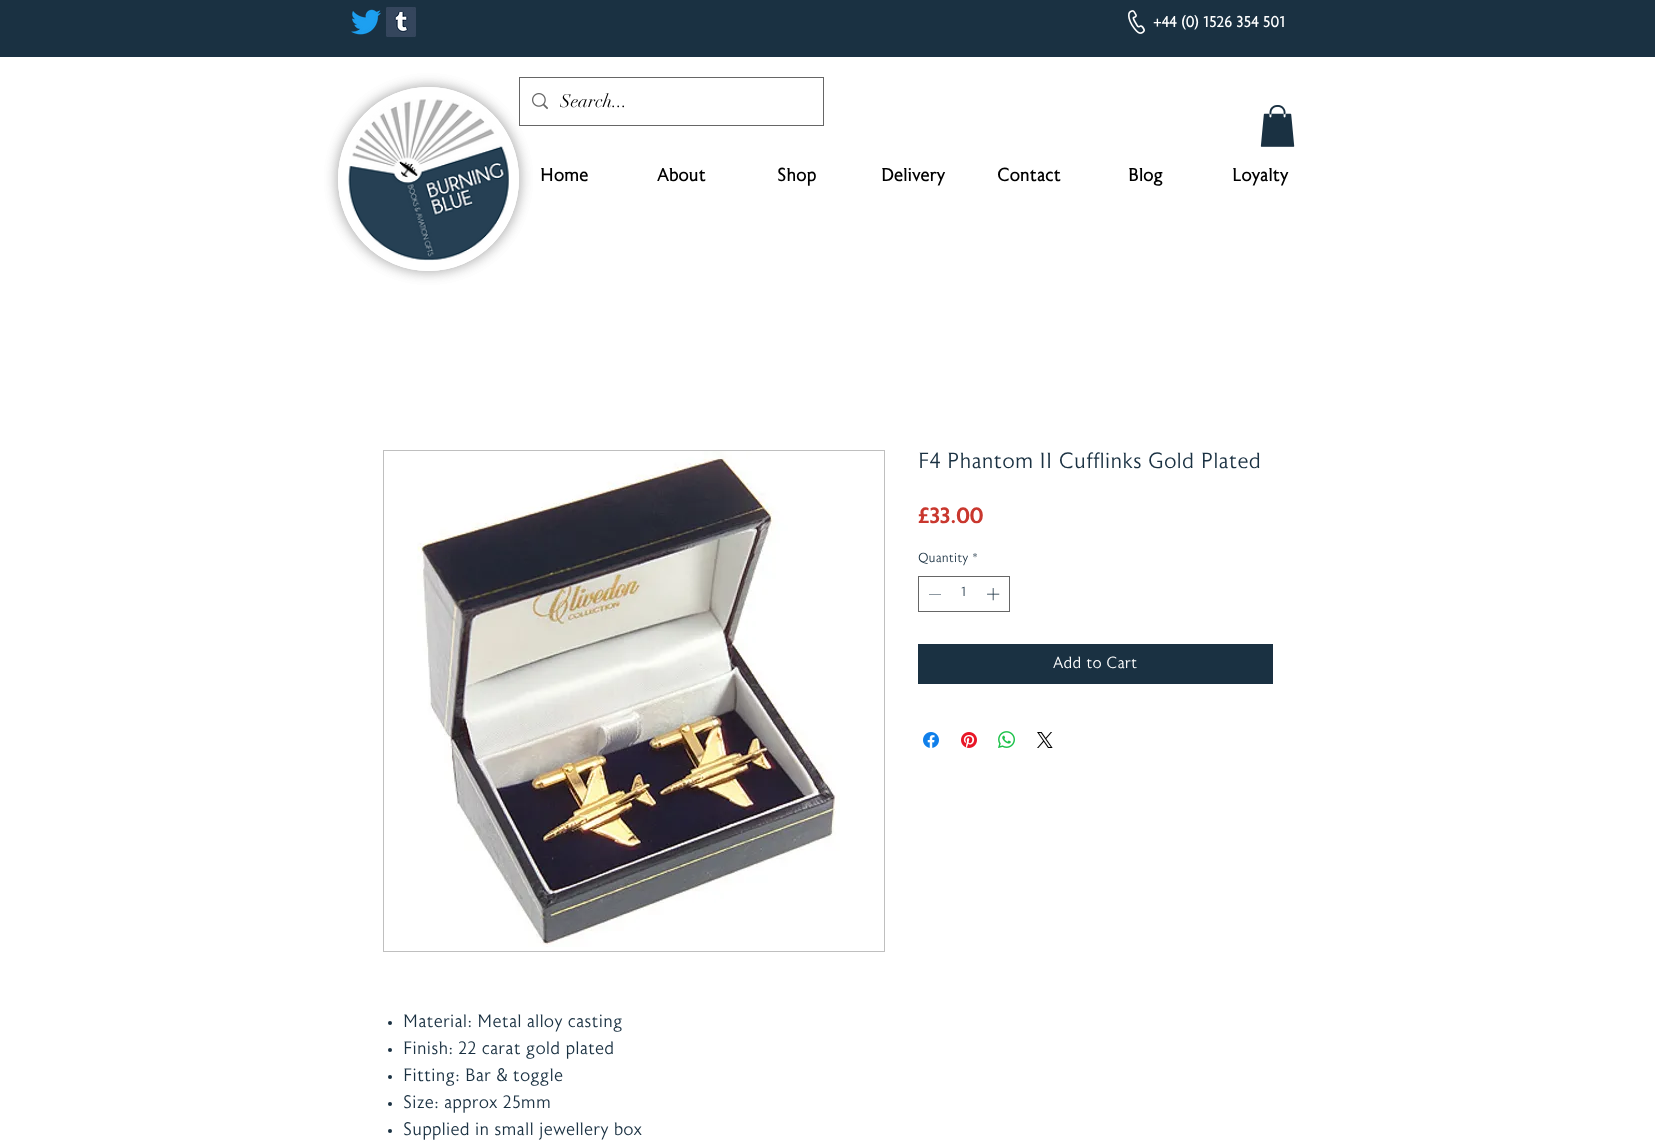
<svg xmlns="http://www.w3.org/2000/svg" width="1655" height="1141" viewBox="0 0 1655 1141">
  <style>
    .t1 { font: bold 15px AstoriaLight; fill: #fff; }
    .t2 { font: 18px didot; fill: #000; }
    .t3 { font: bold 18px AstoriaLight; fill: #000; }
    .t4 { font: 300 22px AstoriaLight; fill: #1a3142; }
    .t5 { font: 500 22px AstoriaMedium; fill: #c9372e; }
    .t6 { font: 300 13px AstoriaLight; fill: #1a3142; }
    .t7 { font: 300 16px AstoriaLight; fill: #fff; }
    .t8 { font: 300 18px AstoriaLight; fill: #1a3142; }
  </style>
  <defs>
    <clipPath id="clip1"><rect x="560" y="90" width="221" height="22"/></clipPath>
  </defs>
  <rect width="100%" height="100%" fill="#fff"/>
  <rect x="0" y="0" width="1655" height="57" fill="#1a3142"/>
  <image x="351" y="9" width="30" height="26" href="images/1.png"/>
  <image x="386" y="7" width="30" height="30" href="images/2.png"/>
  <image x="1128" y="10" width="17" height="24" href="images/3.png"/>
  <text x="1153" y="27" class="t1">+44 (0) 1526 354 501</text>
  <rect x="338" y="87" width="181" height="184" rx="90.5" fill="#00000033" filter="blur(7px)"/>
  <path d="M428.5 90C477 90 516 130 516 179C516 228 477 268 428.5 268C380 268 341 228 341 179C341 130 380 90 428.5 90Z" fill="none" stroke="#fff" stroke-width="6"/>
  <rect x="519.5" y="77.5" width="304" height="48" fill="none" stroke="#666"/>
  <image x="532" y="93" width="16" height="17" href="images/5.png"/>
  <rect x="338" y="87" width="181" height="184" rx="90.5" fill="#00000033" filter="blur(7px)"/>
  <ellipse cx="428.5" cy="179" rx="90.5" ry="92" fill="#fff"/>
  <path d="M428.5 90C477 90 516 130 516 179C516 228 477 268 428.5 268C380 268 341 228 341 179C341 130 380 90 428.5 90Z" fill="none" stroke="#fff" stroke-width="6"/>
  <image x="348" y="99" width="161" height="162" href="images/4.png"/>
  <g clip-path="url(#clip1)">
    <text x="560" y="107" class="t2">Search...</text>
  </g>
  <image x="1260" y="105" width="35" height="42" href="images/6.png"/>
  <text x="540" y="181" class="t3">Home</text>
  <text x="657" y="181" class="t3">About</text>
  <text x="777" y="181" class="t3">Shop</text>
  <text x="881" y="181" class="t3">Delivery</text>
  <text x="997" y="181" class="t3">Contact</text>
  <text x="1128" y="181" class="t3">Blog</text>
  <text x="1232" y="181" class="t3">Loyalty</text>
  <text x="918" y="468" class="t4">F4 Phantom II Cufflinks Gold Plated</text>
  <text x="918" y="523" class="t5">£33.00</text>
  <text x="918" y="562" class="t6">Quantity</text>
  <text x="972" y="562" class="t6">*</text>
  <rect x="918.5" y="576.5" width="91" height="35" fill="none" stroke="#666"/>
  <path d="M941 594V594.5H929V594Z" fill="#1a3142" fill-rule="evenodd"/>
  <text x="961" y="596" class="t6">1</text>
  <image x="987" y="588" width="13" height="13" href="images/7.png"/>
  <rect x="918" y="644" width="355" height="40" fill="#1a3142"/>
  <text x="1053" y="668" class="t7">Add to Cart</text>
  <image x="923" y="732" width="16" height="16" href="images/8.png"/>
  <image x="961" y="732" width="16" height="16" href="images/9.png"/>
  <image x="998" y="731" width="17" height="17" href="images/10.png"/>
  <image x="1037" y="732" width="16" height="16" href="images/11.png"/>
  <rect x="383.5" y="450.5" width="501" height="501" fill="none" stroke="#bfbfbf"/>
  <image x="417" y="451" width="423" height="496" href="images/12.png"/>
  <circle cx="390" cy="1023" r="2" fill="#1a3142"/>
  <text x="403" y="1027" class="t8">Material: Metal alloy casting</text>
  <circle cx="390" cy="1050" r="2" fill="#1a3142"/>
  <text x="403" y="1054" class="t8">Finish: 22 carat gold plated</text>
  <circle cx="390" cy="1077" r="2" fill="#1a3142"/>
  <text x="403" y="1081" class="t8">Fitting: Bar &amp; toggle</text>
  <circle cx="390" cy="1104" r="2" fill="#1a3142"/>
  <text x="403" y="1108" class="t8">Size: approx 25mm</text>
  <circle cx="390" cy="1131" r="2" fill="#1a3142"/>
  <text x="403" y="1135" class="t8">Supplied in small jewellery box</text>
</svg>
